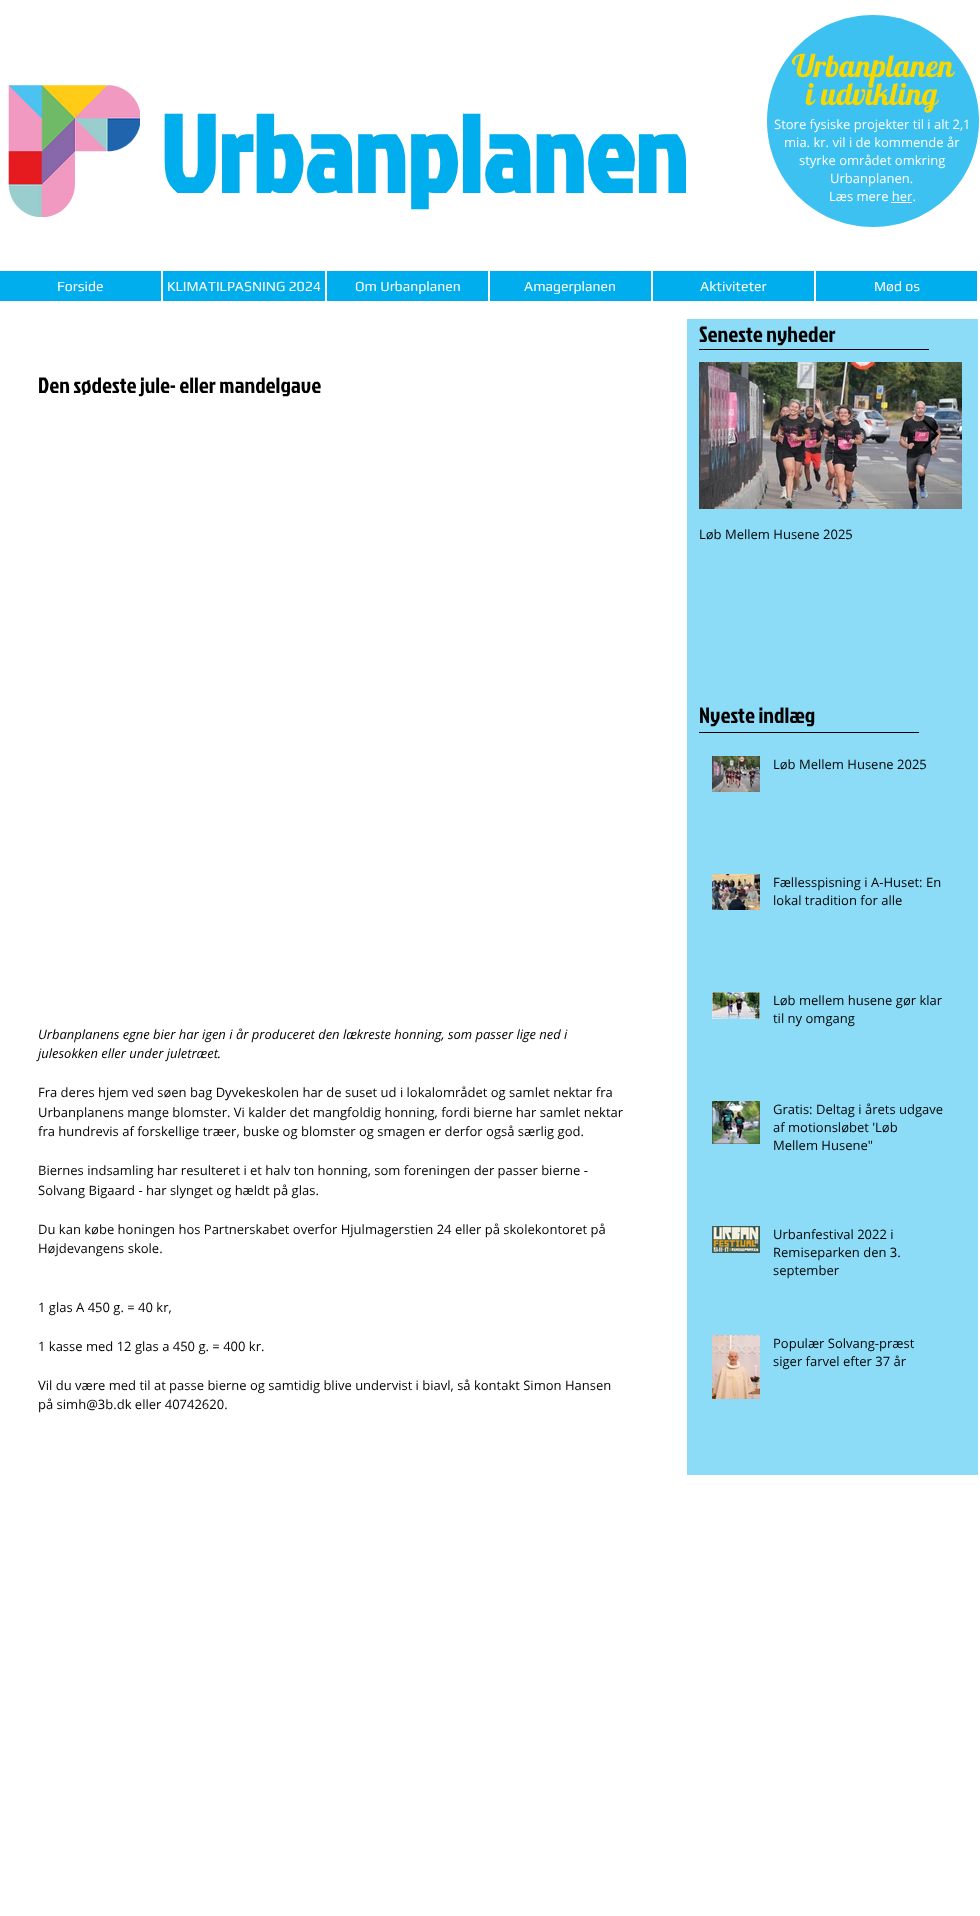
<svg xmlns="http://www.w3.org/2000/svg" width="980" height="1916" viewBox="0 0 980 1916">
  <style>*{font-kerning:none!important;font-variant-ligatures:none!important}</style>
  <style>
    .t1 { font: bold 109px Jockey One; fill: #00aded; }
    .t2 { font: 31px Lobster; fill: #f8d801; }
    .t3 { font: 13px Open Sans; fill: #fff; }
    .t4 { font: 14px Play; fill: #fff; }
    .t5 { font: 22px Jockey One; fill: #000; }
    .t6 { font: italic 13px Open Sans; fill: #000; }
    .t7 { font: 13px Open Sans; fill: #000; }
  </style>
  <rect width="100%" height="100%" fill="#fff"/>
  <path d="M979 121C979 180 932 227 873 227C814 227 767 180 767 121C767 62 814 15 873 15C932 15 979 62 979 121Z" fill="#3dc1f1"/>
  <image x="8" y="85" width="132" height="132" href="images/1.png"/>
  <text x="160" y="193" class="t1">Urbanplanen</text>
  <text x="792" y="77" class="t2">Urbanplanen</text>
  <text x="806" y="105" class="t2">i udvikling</text>
  <text x="774" y="129" class="t3">Store fysiske projekter til i alt 2,1</text>
  <text x="784" y="147" class="t3">mia. kr. vil i de kommende år</text>
  <text x="799" y="165" class="t3">styrke området omkring</text>
  <text x="830" y="183" class="t3">Urbanplanen.</text>
  <text x="829" y="201" class="t3">Læs mere her.</text>
  <rect x="891" y="202" width="21" height="1" fill="#fff"/>
  <rect x="0" y="271" width="161" height="30" fill="#00aded"/>
  <text x="57" y="291" class="t4">Forside</text>
  <rect x="163" y="271" width="162" height="30" fill="#00aded"/>
  <text x="167" y="291" class="t4">KLIMATILPASNING 2024</text>
  <rect x="327" y="271" width="161" height="30" fill="#00aded"/>
  <text x="355" y="291" class="t4">Om Urbanplanen</text>
  <rect x="490" y="271" width="161" height="30" fill="#00aded"/>
  <text x="524" y="291" class="t4">Amagerplanen</text>
  <rect x="653" y="271" width="161" height="30" fill="#00aded"/>
  <text x="700" y="291" class="t4">Aktiviteter</text>
  <rect x="816" y="271" width="161" height="30" fill="#00aded"/>
  <text x="874" y="291" class="t4">Mød os</text>
  <text x="38" y="393" class="t5">Den sødeste jule- eller mandelgave</text>
  <text x="38" y="1039" class="t6">Urbanplanens egne bier har igen i år produceret den lækreste honning, som passer lige ned i</text>
  <text x="38" y="1058" class="t6">julesokken eller under juletræet.</text>
  <text x="38" y="1097" class="t7">Fra deres hjem ved søen bag Dyvekeskolen har de suset ud i lokalområdet og samlet nektar fra</text>
  <text x="38" y="1117" class="t7">Urbanplanens mange blomster. Vi kalder det mangfoldig honning, fordi bierne har samlet nektar</text>
  <text x="38" y="1136" class="t7">fra hundrevis af forskellige træer, buske og blomster og smagen er derfor også særlig god.</text>
  <text x="38" y="1175" class="t7">Biernes indsamling har resulteret i et halv ton honning, som foreningen der passer bierne -</text>
  <text x="38" y="1195" class="t7">Solvang Bigaard - har slynget og hældt på glas.</text>
  <text x="38" y="1234" class="t7">Du kan købe honingen hos Partnerskabet overfor Hjulmagerstien 24 eller på skolekontoret på</text>
  <text x="38" y="1253" class="t7">Højdevangens skole.</text>
  <text x="38" y="1312" class="t7">1 glas A 450 g. = 40 kr,</text>
  <text x="38" y="1351" class="t7">1 kasse med 12 glas a 450 g. = 400 kr.</text>
  <text x="38" y="1390" class="t7">Vil du være med til at passe bierne og samtidig blive undervist i biavl, så kontakt Simon Hansen</text>
  <text x="38" y="1409" class="t7">på simh@3b.dk eller 40742620.</text>
  <rect x="687" y="319" width="291" height="1156" fill="#8cdcf8"/>
  <text x="699" y="342" class="t5">Seneste nyheder</text>
  <rect x="699" y="349" width="230" height="1" fill="#000"/>
  <image x="699" y="362" width="263" height="147" href="images/3.png"/>
  <image x="922" y="420" width="17" height="29" href="images/2.png"/>
  <text x="699" y="539" class="t7">Løb Mellem Husene 2025</text>
  <text x="699" y="723" class="t5">Nyeste indlæg</text>
  <rect x="699" y="732" width="220" height="1" fill="#000"/>
  <image x="712" y="756" width="48" height="36" href="images/4.png"/>
  <text x="773" y="769" class="t7">Løb Mellem Husene 2025</text>
  <image x="712" y="874" width="48" height="36" href="images/5.png"/>
  <text x="773" y="887" class="t7">Fællesspisning i A-Huset: En</text>
  <text x="773" y="905" class="t7">lokal tradition for alle</text>
  <image x="712" y="992" width="48" height="27" href="images/6.png"/>
  <text x="773" y="1005" class="t7">Løb mellem husene gør klar</text>
  <text x="773" y="1023" class="t7">til ny omgang</text>
  <image x="712" y="1101" width="48" height="43" href="images/7.png"/>
  <text x="773" y="1114" class="t7">Gratis: Deltag i årets udgave</text>
  <text x="773" y="1132" class="t7">af motionsløbet 'Løb</text>
  <text x="773" y="1150" class="t7">Mellem Husene"</text>
  <image x="712" y="1226" width="48" height="27" href="images/8.png"/>
  <text x="773" y="1239" class="t7">Urbanfestival 2022 i</text>
  <text x="773" y="1257" class="t7">Remiseparken den 3.</text>
  <text x="773" y="1275" class="t7">september</text>
  <image x="712" y="1335" width="48" height="64" href="images/9.png"/>
  <text x="773" y="1348" class="t7">Populær Solvang-præst</text>
  <text x="773" y="1366" class="t7">siger farvel efter 37 år</text>
</svg>
